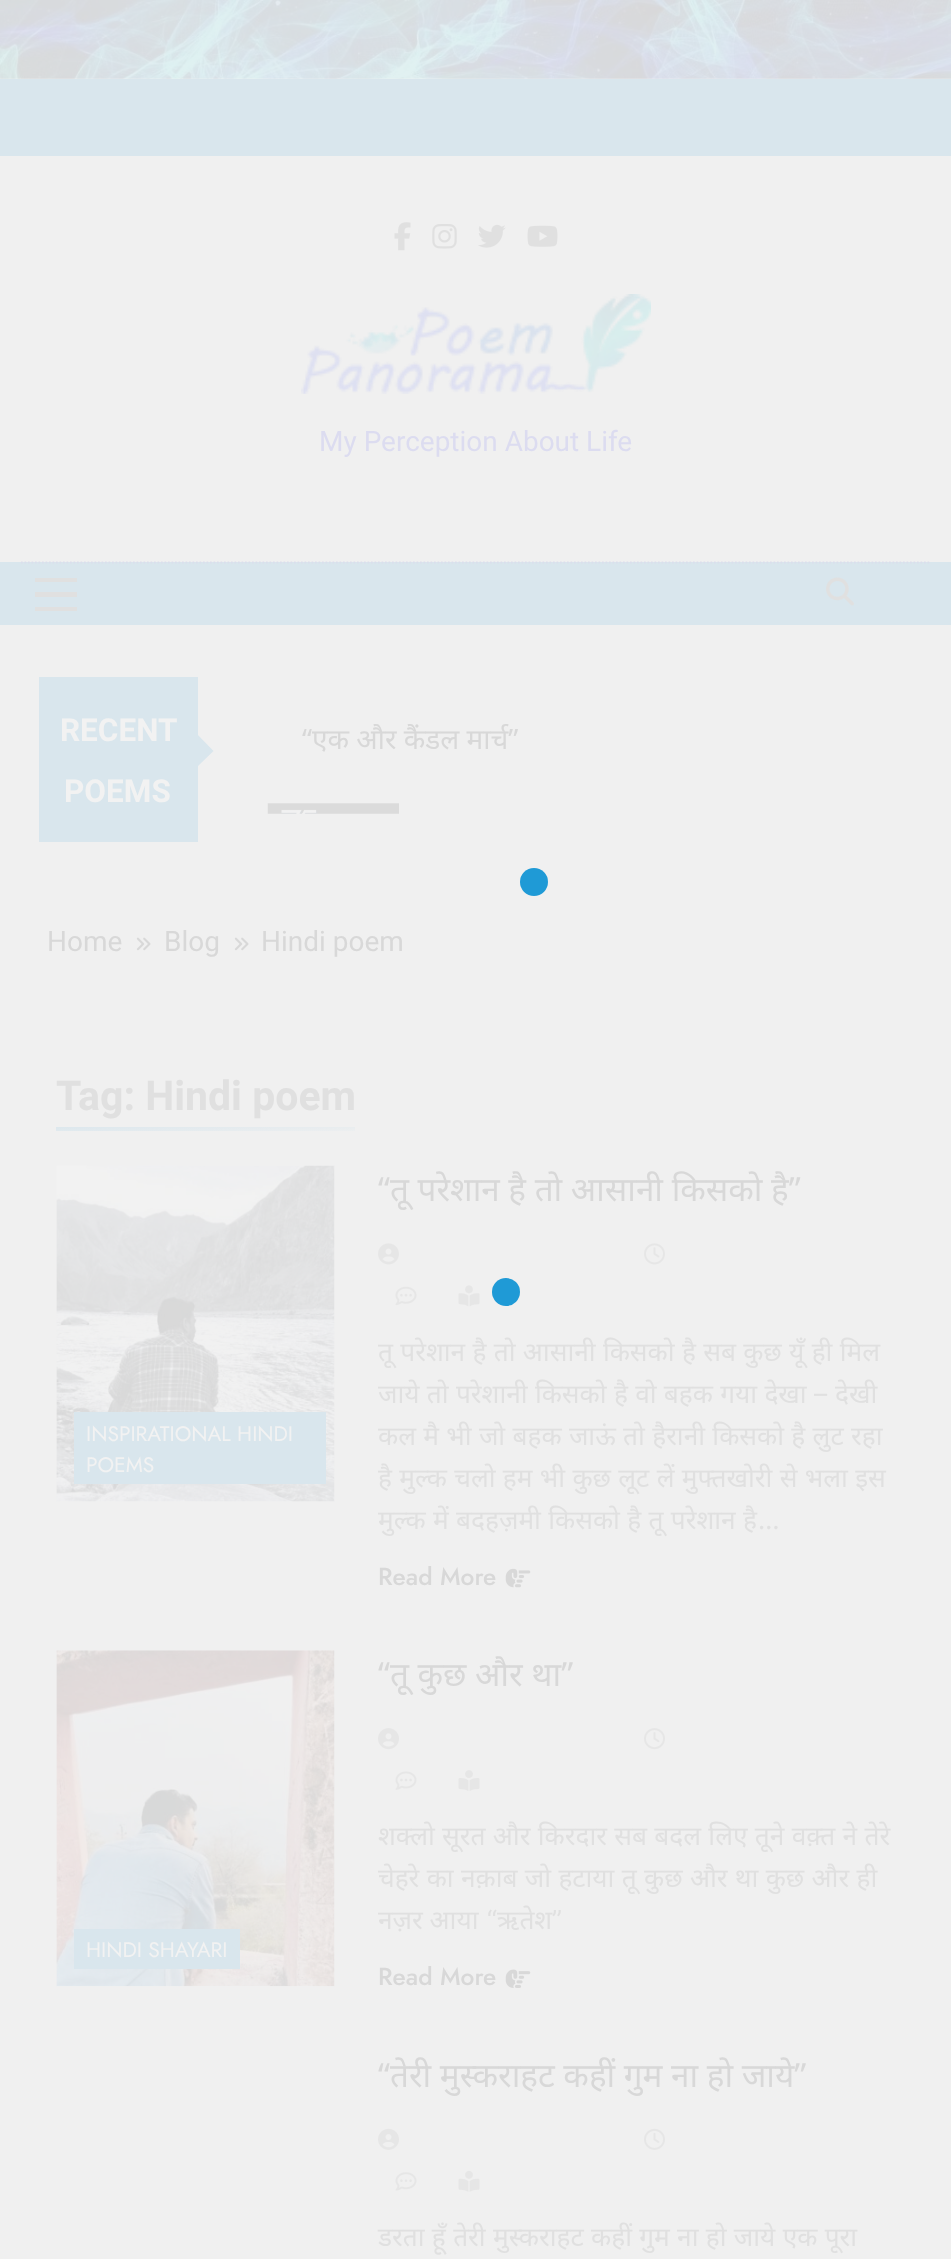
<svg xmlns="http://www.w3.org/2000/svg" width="951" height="2259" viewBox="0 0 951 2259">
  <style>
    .t1 { font: 28px Roboto; fill: #dcdcf0; }
    .t2 { font: bold 31.5px Roboto; fill: #f2f2f2; }
    .t3 { font: 28px Noto Sans; fill: #d8d8d8; }
    .t4 { font: 28px Roboto; fill: #d8d8d8; }
    .t5 { font: bold 41px Roboto; fill: #e0e0e0; }
    .t6 { font: 21px Jost; fill: #f2f2f2; }
    .t7 { font: 33.25px Noto Sans; fill: #d8d8d8; }
    .t8 { font: 26.25px Noto Sans; fill: #e0e0e0; }
    .t9 { font: 26.25px Inter; fill: #e0e0e0; }
    .t10 { font: 500 24.5px Jost; fill: #d8d8d8; }
  </style>
  <defs>
    <linearGradient id="g1" gradientUnits="userSpaceOnUse" x1="205" y1="1117" x2="206" y2="1141"><stop offset="0" stop-color="#d9e6ed"/><stop offset="1" stop-color="#f0f0f0"/></linearGradient>
  </defs>
  <rect width="100%" height="100%" fill="#f0f0f0"/>
  <image x="0" y="0" width="951" height="79" href="images/1.png"/>
  <rect x="0" y="79" width="951" height="77" fill="#d9e6ed"/>
  <image x="394" y="222" width="17" height="29" href="images/2.png"/>
  <image x="432" y="224" width="25" height="25" href="images/3.png"/>
  <image x="478" y="224" width="28" height="24" href="images/4.png"/>
  <image x="527" y="225" width="31" height="22" href="images/5.png"/>
  <image x="301" y="294" width="350" height="100" href="images/6.png"/>
  <text x="319" y="451" class="t1">My Perception About Life</text>
  <rect x="0" y="562" width="951" height="63" fill="#d9e6ed"/>
  <path d="M21 562.5H931" fill="none" stroke="#dbdeec" stroke-width="1.8" stroke-dasharray="1.75 1.75"/>
  <rect x="35" y="578" width="42" height="4" fill="#e0e0e0"/>
  <rect x="35" y="592" width="42" height="5" fill="#e0e0e0"/>
  <rect x="35" y="607" width="42" height="4" fill="#e0e0e0"/>
  <image x="826" y="577" width="28" height="29" href="images/7.png"/>
  <rect x="39" y="677" width="159" height="165" fill="#d9e6ed"/>
  <text x="60" y="741" class="t2">RECENT</text>
  <path d="M196 768V733L213.5 751Z" fill="#d9e6ed"/>
  <text x="64" y="802" class="t2">POEMS</text>
  <text x="302" y="749" class="t3">“एक और कैंडल मार्च”</text>
  <image x="267" y="803" width="132" height="11" href="images/8.png"/>
  <circle cx="534" cy="882" r="14" fill="#1f9ad6"/>
  <circle cx="506" cy="1292" r="14" fill="#0890d3e6"/>
  <text x="47" y="951" class="t4">Home</text>
  <image x="136" y="937" width="15" height="14" href="images/9.png"/>
  <text x="164" y="951" class="t4">Blog</text>
  <image x="234" y="937" width="15" height="14" href="images/9.png"/>
  <text x="261" y="951" class="t4">Hindi poem</text>
  <text x="56" y="1110" class="t5">Tag: Hindi poem</text>
  <rect x="56" y="1127" width="299" height="4" fill="url(#g1)"/>
  <image x="56" y="1165" width="279" height="337" href="images/10.png"/>
  <rect x="74" y="1412" width="252" height="72" fill="#d9e6ed"/>
  <text x="86" y="1441" class="t6">INSPIRATIONAL HINDI</text>
  <text x="86" y="1472" class="t6">POEMS</text>
  <text x="378" y="1201" class="t7">“तू परेशान है तो आसानी किसको है”</text>
  <image x="378" y="1243" width="21" height="22" href="images/11.png"/>
  <image x="644" y="1243" width="21" height="22" href="images/12.png"/>
  <image x="395" y="1286" width="22" height="20" href="images/13.png"/>
  <image x="458" y="1285" width="22" height="22" href="images/14.png"/>
  <text x="378" y="1361" word-spacing="0.5" class="t8">तू परेशान है तो आसानी किसको है सब कुछ यूँ ही मिल</text>
  <text x="378" y="1403" word-spacing="0.5" class="t8">जाये तो परेशानी किसको है वो बहक गया देखा</text>
  <text x="814" y="1403" class="t9">–</text>
  <text x="835" y="1403" class="t8">देखी</text>
  <text x="378" y="1445" word-spacing="0.5" class="t8">कल मै भी जो बहक जाऊं तो हैरानी किसको है लुट रहा</text>
  <text x="378" y="1487" word-spacing="0.5" class="t8">है मुल्क चलो हम भी कुछ लूट लें मुफ्तखोरी से भला इस</text>
  <text x="378" y="1529" word-spacing="0.5" class="t8">मुल्क में बदहज़मी किसको है तू परेशान है</text>
  <text x="758" y="1529" class="t9">…</text>
  <text x="378" y="1585" class="t10">Read More</text>
  <image x="505" y="1568" width="26" height="20" href="images/15.png"/>
  <image x="56" y="1650" width="279" height="337" href="images/16.png"/>
  <rect x="74" y="1929" width="166" height="40" fill="#d9e6ed"/>
  <text x="86" y="1957" class="t6">HINDI SHAYARI</text>
  <text x="378" y="1686" class="t7">“तू कुछ और था”</text>
  <image x="378" y="1728" width="21" height="22" href="images/17.png"/>
  <image x="644" y="1728" width="21" height="22" href="images/18.png"/>
  <image x="395" y="1771" width="22" height="19" href="images/19.png"/>
  <image x="458" y="1770" width="22" height="21" href="images/20.png"/>
  <text x="378" y="1845" word-spacing="0.5" class="t8">शक्लो सूरत और किरदार सब बदल लिए तूने वक़्त ने तेरे</text>
  <text x="378" y="1887" word-spacing="0.5" class="t8">चेहरे का नक़ाब जो हटाया तू कुछ और था कुछ और ही</text>
  <text x="378" y="1929" class="t8">नज़र आया</text>
  <text x="487" y="1929" class="t9">“</text>
  <text x="497" y="1929" class="t8">ऋतेश</text>
  <text x="552" y="1929" class="t9">”</text>
  <text x="378" y="1985" class="t10">Read More</text>
  <image x="505" y="1969" width="26" height="19" href="images/21.png"/>
  <text x="378" y="2087" class="t7">“तेरी मुस्कराहट कहीं गुम ना हो जाये”</text>
  <image x="378" y="2128" width="21" height="22" href="images/22.png"/>
  <image x="644" y="2128" width="21" height="22" href="images/23.png"/>
  <image x="395" y="2172" width="22" height="19" href="images/24.png"/>
  <image x="458" y="2170" width="22" height="22" href="images/25.png"/>
  <text x="378" y="2246" word-spacing="0.5" class="t8">डरता हूँ तेरी मुस्कराहट कहीं गुम ना हो जाये एक पूरा</text>
</svg>
